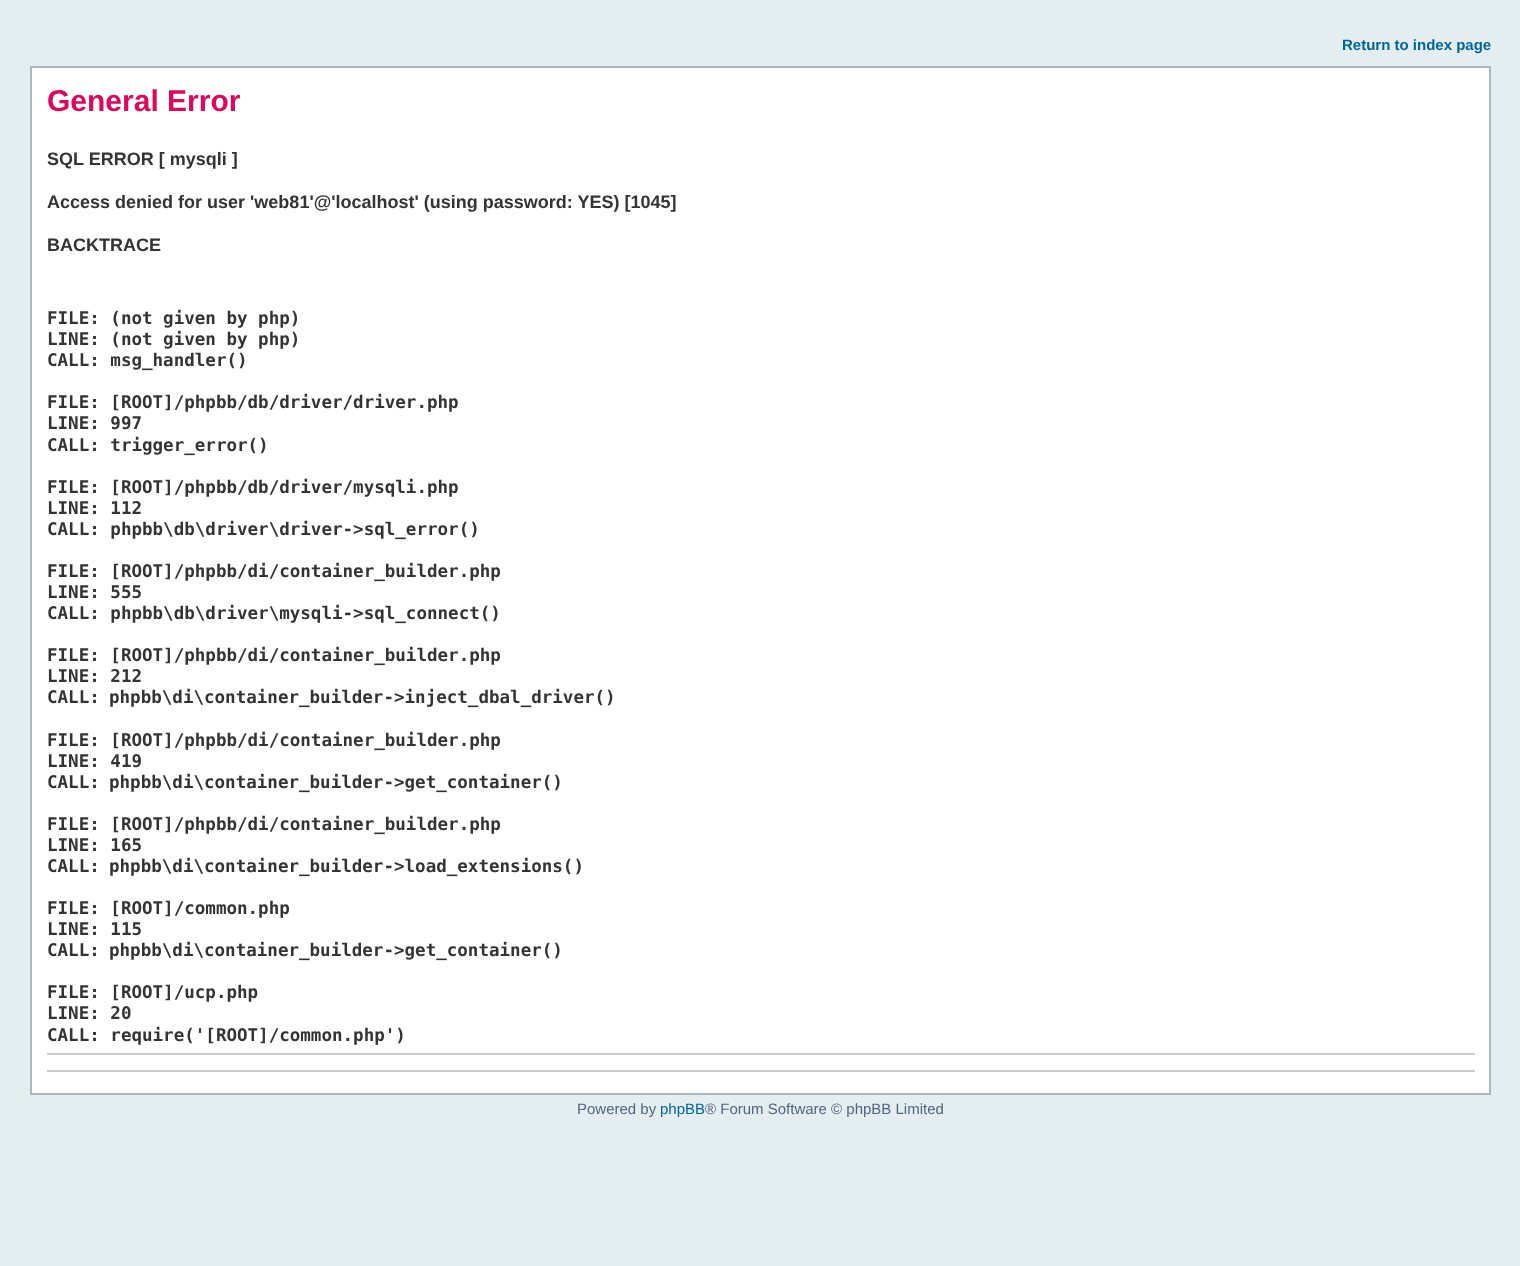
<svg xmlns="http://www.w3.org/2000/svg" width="1520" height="1266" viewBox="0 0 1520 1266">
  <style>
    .t1 { font: bold 15px Liberation Sans; fill: #069; }
    .t2 { font: bold 30px Liberation Sans; fill: #df075c; }
    .t3 { font: bold 18px Liberation Sans; fill: #333; }
    .t4 { font: bold 17.55px DejaVu Sans Mono; fill: #333; }
    .t5 { font: 15px Liberation Sans; fill: #536482; }
    .t6 { font: 15px Liberation Sans; fill: #069; }
  </style>
  <rect width="100%" height="100%" fill="#e4edf0"/>
  <text x="1342" y="50" class="t1">Return to index page</text>
  <rect x="31" y="67" width="1459" height="1027" fill="#fff" stroke="#a9b8c2" stroke-width="2"/>
  <text x="47" y="111" class="t2">General Error</text>
  <rect x="47" y="1070" width="1428" height="2" fill="#ccc"/>
  <text x="47" y="165" class="t3">SQL ERROR [ mysqli ]</text>
  <text x="47" y="208" class="t3">Access denied for user 'web81'@'localhost' (using password: YES) [1045]</text>
  <text x="47" y="251" class="t3">BACKTRACE</text>
  <rect x="47" y="1053" width="1428" height="2" fill="#ccc"/>
  <text x="47" y="324" class="t4">FILE: (not given by php)</text>
  <text x="47" y="345" class="t4">LINE: (not given by php)</text>
  <text x="47" y="366" class="t4">CALL: msg_handler()</text>
  <text x="47" y="408" class="t4">FILE: [ROOT]/phpbb/db/driver/driver.php</text>
  <text x="47" y="429" class="t4">LINE: 997</text>
  <text x="47" y="451" class="t4">CALL: trigger_error()</text>
  <text x="47" y="493" class="t4">FILE: [ROOT]/phpbb/db/driver/mysqli.php</text>
  <text x="47" y="514" class="t4">LINE: 112</text>
  <text x="47" y="535" class="t4">CALL: phpbb\db\driver\driver-&gt;sql_error()</text>
  <text x="47" y="577" class="t4">FILE: [ROOT]/phpbb/di/container_builder.php</text>
  <text x="47" y="598" class="t4">LINE: 555</text>
  <text x="47" y="619" class="t4">CALL: phpbb\db\driver\mysqli-&gt;sql_connect()</text>
  <text x="47" y="661" class="t4">FILE: [ROOT]/phpbb/di/container_builder.php</text>
  <text x="47" y="682" class="t4">LINE: 212</text>
  <text x="47" y="703" class="t4">CALL:</text>
  <text x="109" y="703" class="t4">phpbb\di\container_builder-&gt;inject_dbal_driver()</text>
  <text x="47" y="746" class="t4">FILE: [ROOT]/phpbb/di/container_builder.php</text>
  <text x="47" y="767" class="t4">LINE: 419</text>
  <text x="47" y="788" class="t4">CALL:</text>
  <text x="109" y="788" class="t4">phpbb\di\container_builder-&gt;get_container()</text>
  <text x="47" y="830" class="t4">FILE: [ROOT]/phpbb/di/container_builder.php</text>
  <text x="47" y="851" class="t4">LINE: 165</text>
  <text x="47" y="872" class="t4">CALL:</text>
  <text x="109" y="872" class="t4">phpbb\di\container_builder-&gt;load_extensions()</text>
  <text x="47" y="914" class="t4">FILE: [ROOT]/common.php</text>
  <text x="47" y="935" class="t4">LINE: 115</text>
  <text x="47" y="956" class="t4">CALL:</text>
  <text x="109" y="956" class="t4">phpbb\di\container_builder-&gt;get_container()</text>
  <text x="47" y="998" class="t4">FILE: [ROOT]/ucp.php</text>
  <text x="47" y="1019" class="t4">LINE: 20</text>
  <text x="47" y="1041" class="t4">CALL: require('[ROOT]/common.php')</text>
  <text x="577" y="1114" class="t5">Powered by</text>
  <text x="660" y="1114" class="t6">phpBB</text>
  <text x="705" y="1114" class="t5">® Forum Software © phpBB Limited</text>
</svg>
